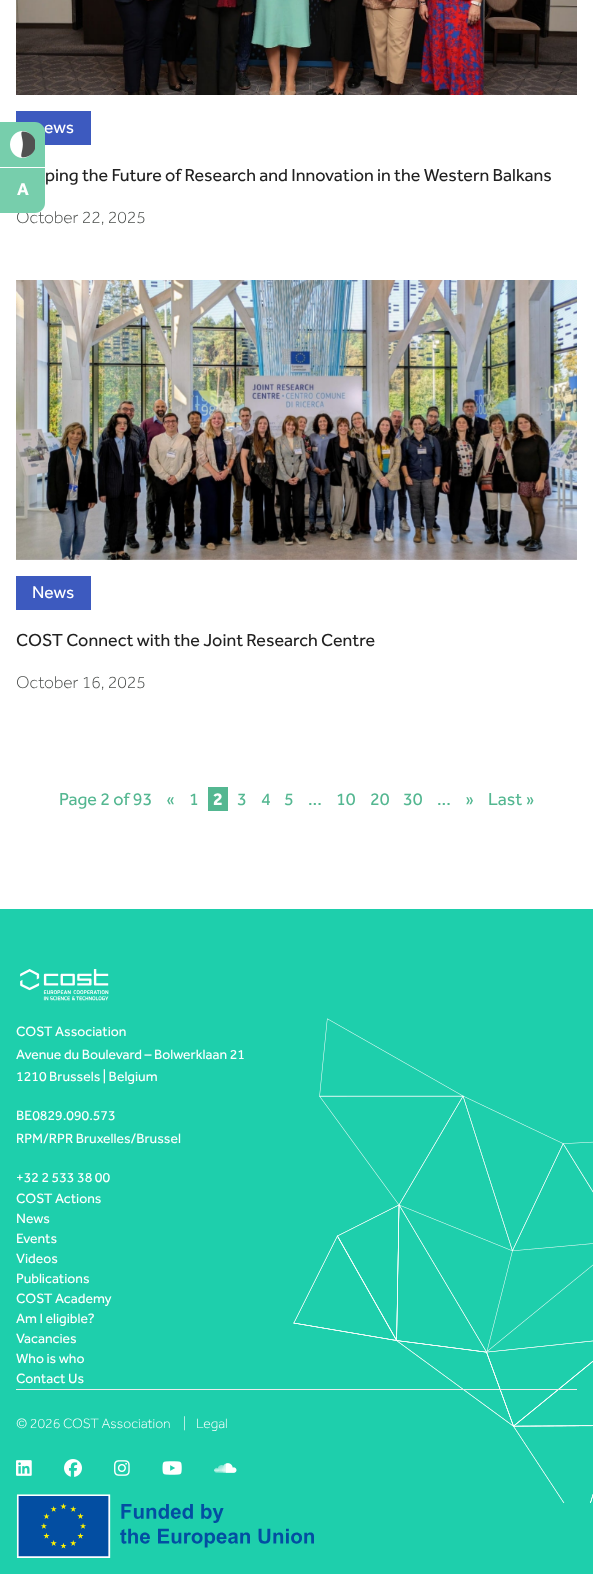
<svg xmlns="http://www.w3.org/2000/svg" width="593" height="1574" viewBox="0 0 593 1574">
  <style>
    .t1 { font: 17.5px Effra; fill: #fff; }
    .t2 { font: 18px Effra; fill: #222; }
    .t3 { font: 300 17.5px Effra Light; fill: #4c4f4d; }
    .t4 { font: 18px Effra; fill: #54b791; }
    .t5 { font: bold 18px Effra; fill: #fff; }
    .t6 { font: bold 17.5px Effra; fill: #fff; }
    .t7 { font: 14px Effra; fill: #fff; }
    .t8 { font: 300 14px Effra Light; fill: #fff; }
  </style>
  <rect width="100%" height="100%" fill="#fff"/>
  <image x="16" y="0" width="561" height="95" href="images/1.png"/>
  <rect x="16" y="111" width="75" height="34" fill="#3d5abf"/>
  <text x="44" y="133" class="t1">ews</text>
  <text x="45" y="181" class="t2">ping the Future of Research and Innovation in the Western Balkans</text>
  <text x="16" y="223" class="t3">October 22, 2025</text>
  <image x="16" y="280" width="561" height="280" href="images/2.png"/>
  <rect x="16" y="576" width="75" height="34" fill="#3d5abf"/>
  <text x="32" y="598" class="t1">News</text>
  <text x="16" y="646" class="t2">COST Connect with the Joint Research Centre</text>
  <text x="16" y="688" class="t3">October 16, 2025</text>
  <text x="59" y="805" class="t4">Page 2 of 93</text>
  <text x="166" y="805" class="t4">«</text>
  <text x="189" y="805" class="t4">1</text>
  <rect x="208" y="787" width="20" height="24" fill="#54b791"/>
  <text x="213" y="805" class="t5">2</text>
  <text x="237" y="805" class="t4">3</text>
  <text x="261" y="805" class="t4">4</text>
  <text x="284" y="805" class="t4">5</text>
  <text x="308" y="805" class="t4">...</text>
  <text x="336" y="805" class="t4">10</text>
  <text x="370" y="805" class="t4">20</text>
  <text x="403" y="805" class="t4">30</text>
  <text x="437" y="805" class="t4">...</text>
  <text x="465" y="805" class="t4">»</text>
  <text x="488" y="805" class="t4">Last »</text>
  <path d="M0 122H35C40.5 122 45 126.5 45 132V167H0Z" fill="#77ceac"/>
  <image x="10" y="131" width="25" height="27" href="images/3.png"/>
  <path d="M0 168H45V203C45 208.5 40.5 213 35 213H0Z" fill="#77ceac"/>
  <text x="17" y="195" class="t6">A</text>
  <rect x="0" y="909" width="593" height="665" fill="#1ecfac"/>
  <image x="293" y="1018" width="300" height="485" href="images/4.png"/>
  <image x="20" y="969" width="89" height="32" href="images/5.png"/>
  <text x="16" y="1036" class="t7">COST Association</text>
  <text x="16" y="1059" class="t7">Avenue du Boulevard – Bolwerklaan 21</text>
  <text x="16" y="1081" class="t7">1210 Brussels | Belgium</text>
  <text x="16" y="1120" class="t7">BE0829.090.573</text>
  <text x="16" y="1143" class="t7">RPM/RPR Bruxelles/Brussel</text>
  <text x="16" y="1182" class="t7">+32 2 533 38 00</text>
  <text x="16" y="1203" class="t7">COST Actions</text>
  <text x="16" y="1223" class="t7">News</text>
  <text x="16" y="1243" class="t7">Events</text>
  <text x="16" y="1263" class="t7">Videos</text>
  <text x="16" y="1283" class="t7">Publications</text>
  <text x="16" y="1303" class="t7">COST Academy</text>
  <text x="16" y="1323" class="t7">Am I eligible?</text>
  <text x="16" y="1343" class="t7">Vacancies</text>
  <text x="16" y="1363" class="t7">Who is who</text>
  <text x="16" y="1383" class="t7">Contact Us</text>
  <rect x="16" y="1389" width="561" height="1" fill="#ececec"/>
  <text x="16" y="1428" class="t8">© 2026 COST Association</text>
  <text x="183" y="1428" class="t8">|</text>
  <text x="196" y="1428" class="t8">Legal</text>
  <image x="16" y="1460" width="16" height="16" href="images/6.png"/>
  <image x="64" y="1459" width="18" height="18" href="images/7.png"/>
  <image x="114" y="1460" width="16" height="16" href="images/8.png"/>
  <image x="162" y="1461" width="20" height="14" href="images/9.png"/>
  <image x="214" y="1463" width="23" height="10" href="images/10.png"/>
  <image x="16" y="1494" width="298" height="64" href="images/11.png"/>
</svg>
